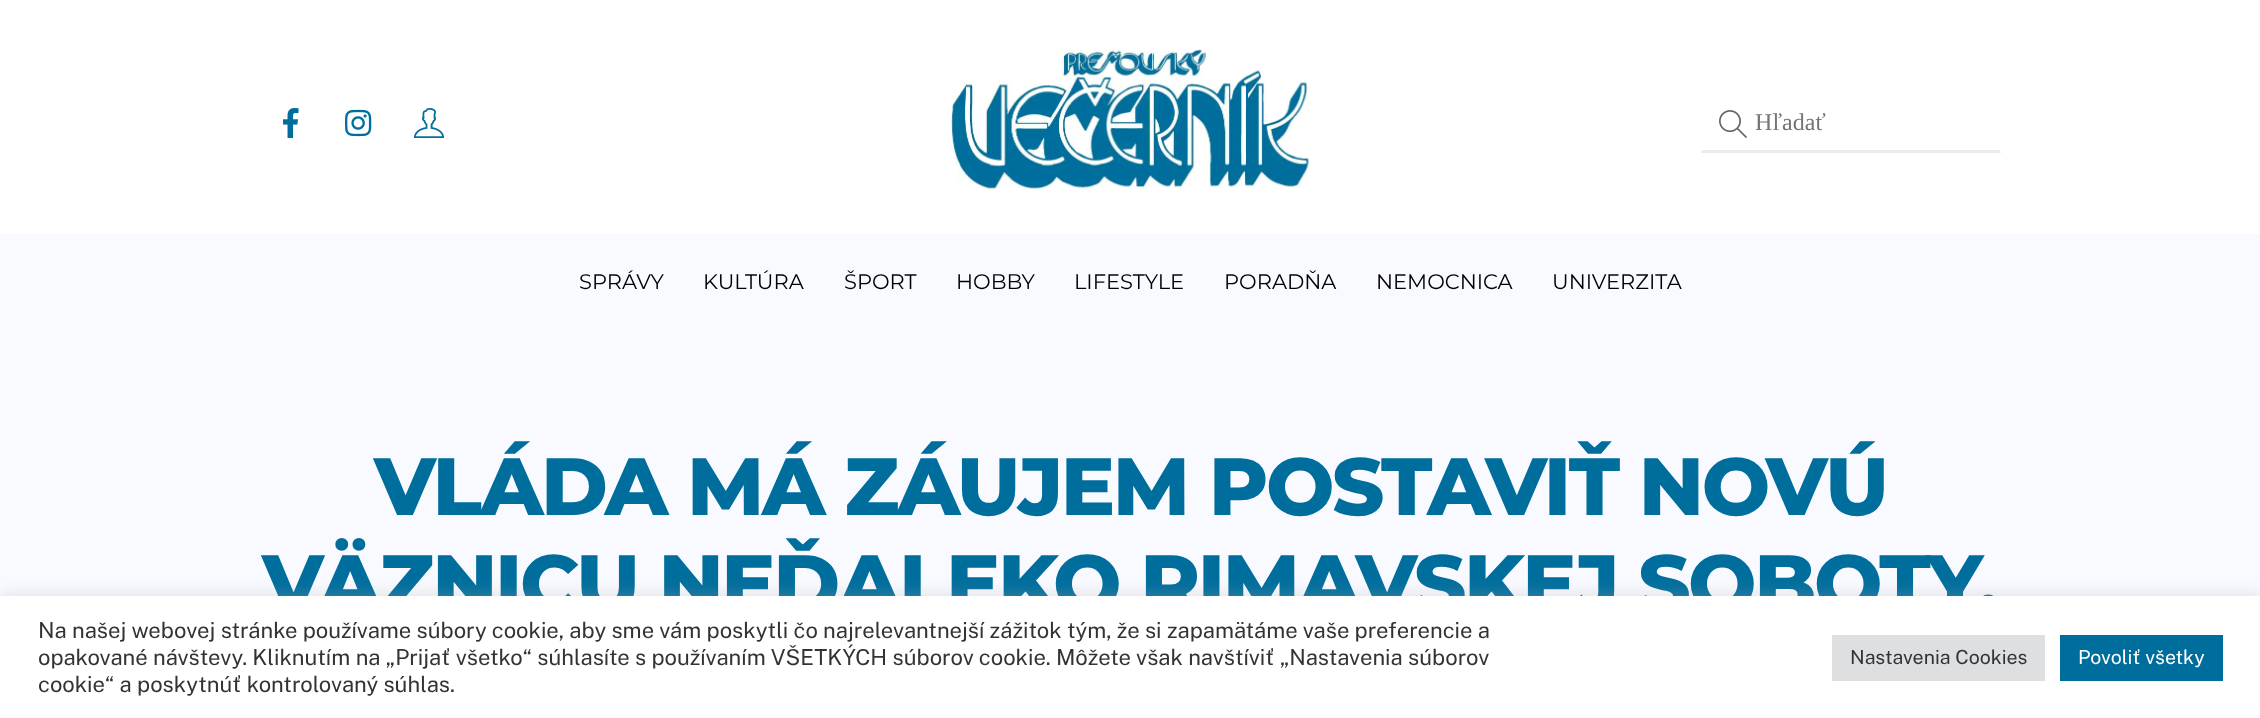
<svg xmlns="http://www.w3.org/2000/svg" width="2260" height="718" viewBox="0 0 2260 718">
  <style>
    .t1 { font: 24px Liberation Serif; fill: #757575; }
    .t2 { font: 21px Montserrat; fill: #000; }
    .t3 { font: 800 81px Montserrat; letter-spacing: -2.45px; fill: #006e9d; }
    .t4 { font: 22px Public Sans; fill: #333; }
    .t5 { font: 19.5px Public Sans; fill: #333; }
    .t6 { font: 19.5px Public Sans; fill: #fff; }
  </style>
  <rect width="100%" height="100%" fill="#fff"/>
  <image x="283" y="108" width="16" height="30" href="images/1.png"/>
  <image x="345" y="109" width="27" height="28" href="images/2.png"/>
  <image x="414" y="108" width="30" height="30" href="images/3.png"/>
  <image x="951" y="49" width="358" height="140" href="images/4.png"/>
  <image x="1719" y="110" width="28" height="28" href="images/5.png"/>
  <path d="M2001 153H1701L1702 150H2000Z" fill="#ebebeb"/>
  <path d="M1701 153V93L1702 94V150Z" fill="#fff"/>
  <text x="1755" y="130" class="t1">Hľadať</text>
  <rect x="0" y="234" width="2260" height="362" fill="#f9faff"/>
  <text x="579" y="289" class="t2">SPRÁVY</text>
  <text x="703" y="289" class="t2">KULTÚRA</text>
  <text x="844" y="289" class="t2">ŠPORT</text>
  <text x="956" y="289" class="t2">HOBBY</text>
  <text x="1074" y="289" class="t2">LIFESTYLE</text>
  <text x="1224" y="289" class="t2">PORADŇA</text>
  <text x="1376" y="289" class="t2">NEMOCNICA</text>
  <text x="1552" y="289" class="t2">UNIVERZITA</text>
  <text x="374" y="515" class="t3">VLÁDA MÁ ZÁUJEM POSTAVIŤ NOVÚ</text>
  <text x="262" y="612" class="t3">VÄZNICU NEĎALEKO RIMAVSKEJ SOBOTY,</text>
  <rect x="0" y="594" width="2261" height="123" fill="#acabab4d" filter="blur(7.5px)"/>
  <rect x="0" y="596" width="2260" height="122" fill="#fff"/>
  <text x="38" y="638" class="t4">Na našej webovej stránke používame súbory cookie, aby sme vám poskytli čo najrelevantnejší zážitok tým, že si zapamätáme vaše preferencie a</text>
  <text x="38" y="665" class="t4">opakované návštevy. Kliknutím na „Prijať všetko“ súhlasíte s používaním VŠETKÝCH súborov cookie. Môžete však navštíviť „Nastavenia súborov</text>
  <text x="38" y="692" class="t4">cookie“ a poskytnúť kontrolovaný súhlas.</text>
  <rect x="1832" y="635" width="213" height="46" fill="#dedfe0"/>
  <text x="1850" y="664" class="t5">Nastavenia Cookies</text>
  <rect x="2060" y="635" width="163" height="46" fill="#006e9d"/>
  <text x="2078" y="664" class="t6">Povoliť všetky</text>
</svg>
